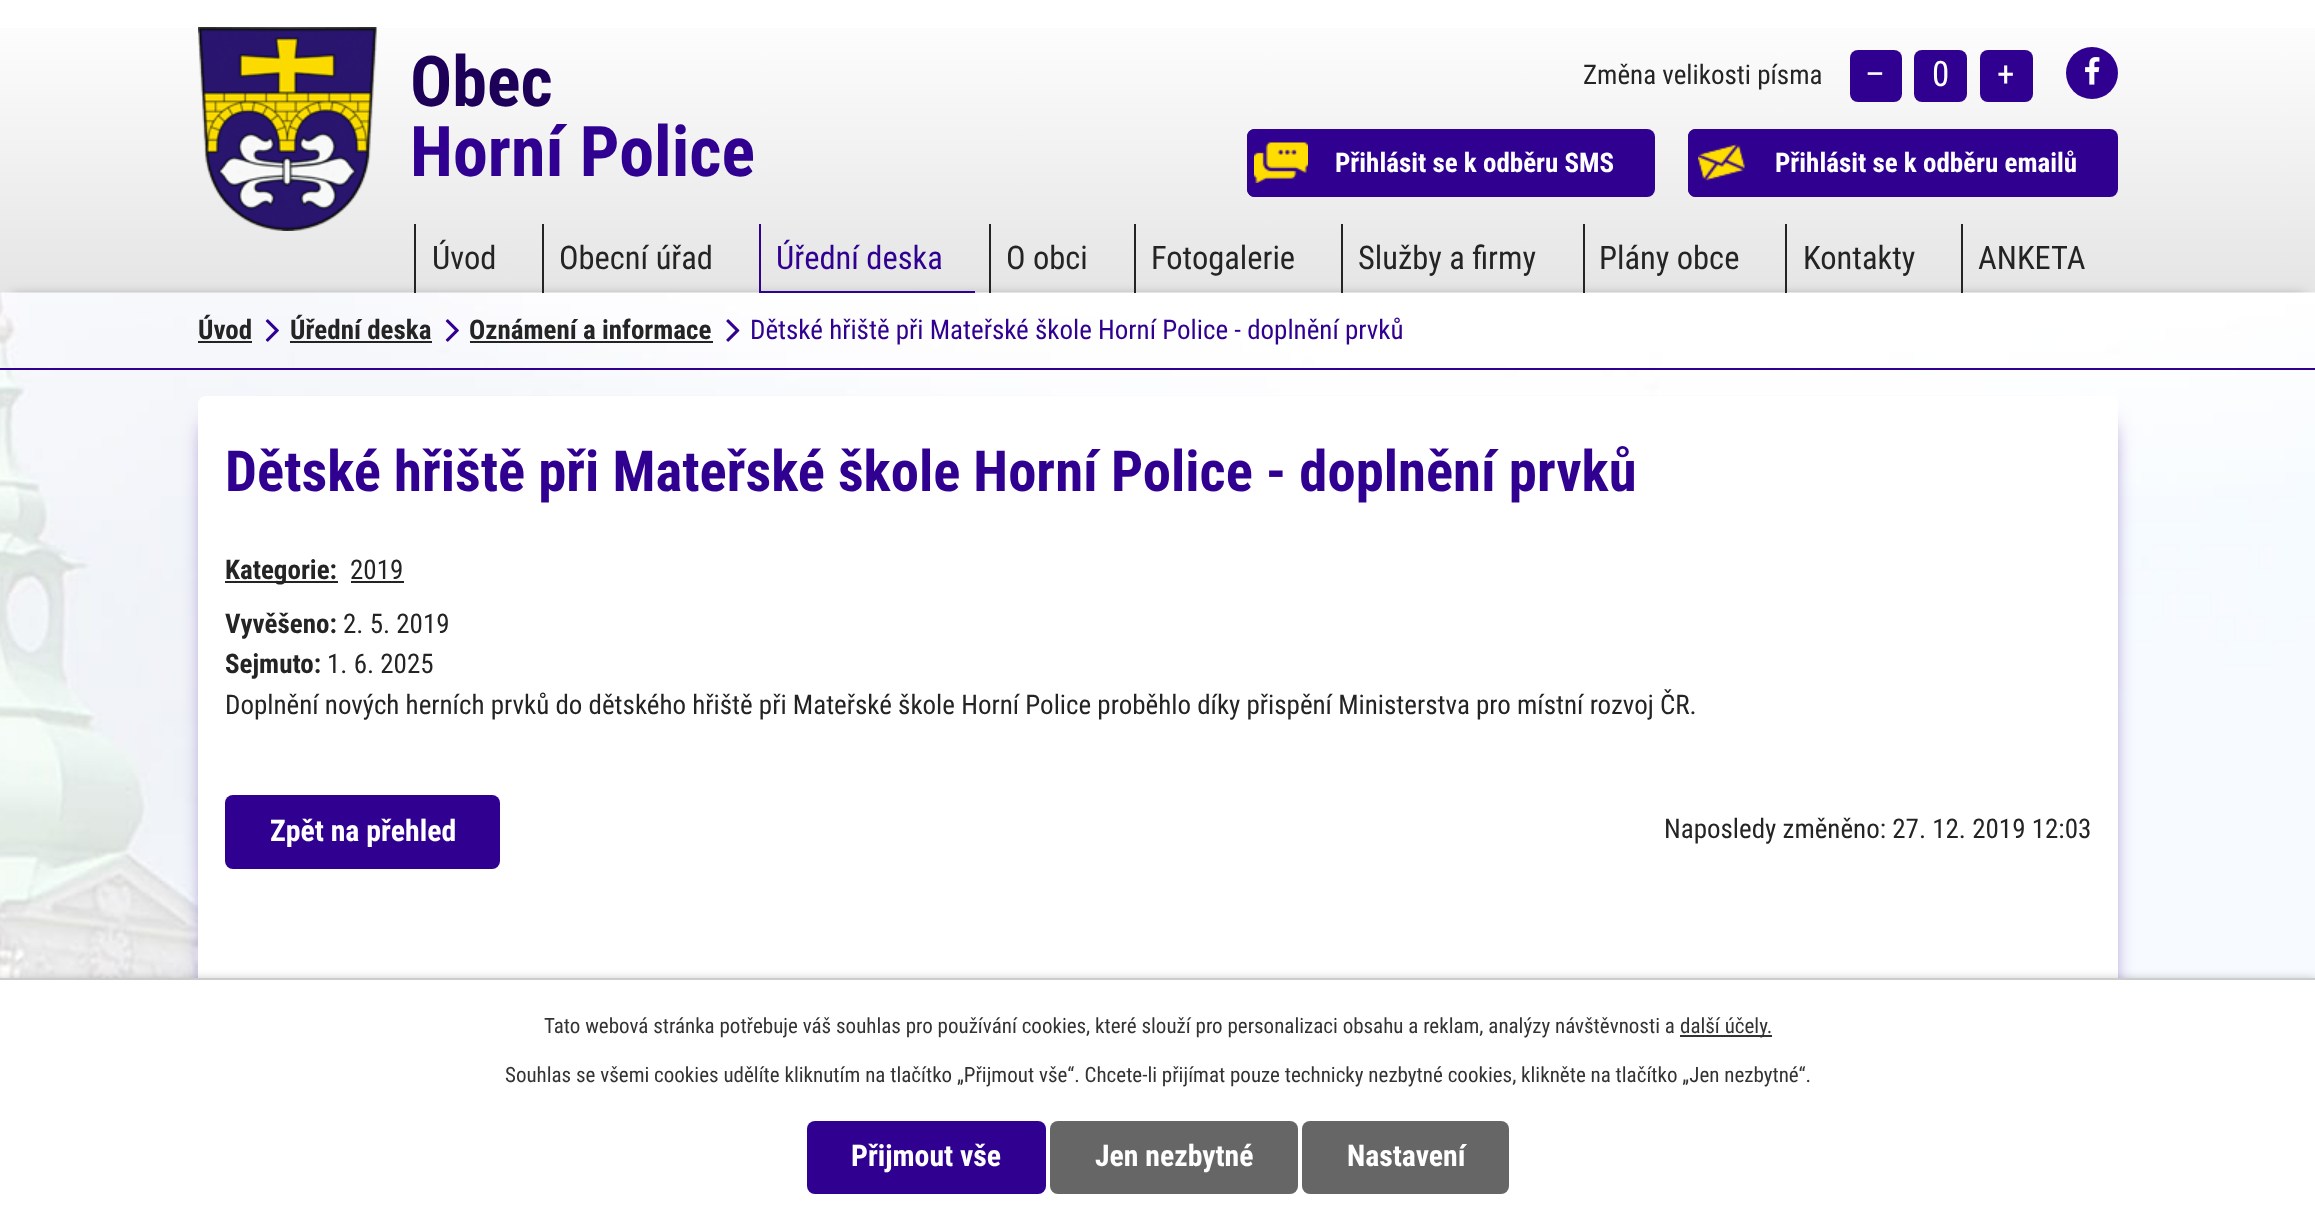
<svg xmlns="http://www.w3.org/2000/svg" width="2315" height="1222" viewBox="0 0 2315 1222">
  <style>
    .t1 { font: bold 70px Roboto Condensed; fill: #1d0058; }
    .t2 { font: bold 70px Roboto Condensed; fill: #300091; }
    .t3 { font: 27px Roboto Condensed; fill: #242424; }
    .t4 { font: 35px Roboto Condensed; fill: #fff; }
    .t5 { font: bold 27px Roboto Condensed; fill: #fff; }
    .t6 { font: 32.5px Roboto Condensed; fill: #242424; }
    .t7 { font: 32.5px Roboto Condensed; fill: #300091; }
    .t8 { font: bold 27px Roboto Condensed; fill: #242424; }
    .t9 { font: 27px Roboto Condensed; fill: #300091; }
    .t10 { font: bold 56.7px Roboto Condensed; fill: #300091; }
    .t11 { font: bold 29.75px Roboto Condensed; fill: #fff; }
    .t12 { font: 21px Roboto Condensed; fill: #333; }
  </style>
  <defs>
    <linearGradient id="g1" gradientUnits="userSpaceOnUse" x1="1158" y1="0" x2="1158" y2="224"><stop offset="0" stop-color="#fff"/><stop offset="1" stop-color="#ebebeb"/></linearGradient>
    <linearGradient id="g2" gradientUnits="userSpaceOnUse" x1="1158" y1="223" x2="1158" y2="293"><stop offset="0" stop-color="#ebebeb"/><stop offset="1" stop-color="#e5e5e5"/></linearGradient>
  </defs>
  <rect width="100%" height="100%" fill="#fff"/>
  <rect x="0" y="28" width="2315" height="196" fill="url(#g1)"/>
  <rect x="0" y="224" width="2315" height="69" fill="url(#g2)"/>
  <image x="198" y="27" width="179" height="204" href="images/1.png"/>
  <text x="410" y="106" class="t1">Obec</text>
  <text x="410" y="176" class="t2">Horní Police</text>
  <text x="1583" y="84" class="t3">Změna velikosti písma</text>
  <rect x="1850" y="50" width="52" height="52" rx="8" fill="#300091"/>
  <text x="1865" y="86" class="t4">–</text>
  <rect x="1914" y="50" width="53" height="52" rx="8" fill="#300091"/>
  <text x="1932" y="86" class="t4">0</text>
  <rect x="1980" y="50" width="53" height="52" rx="8" fill="#300091"/>
  <text x="1997" y="86" class="t4">+</text>
  <circle cx="2092" cy="73" r="26" fill="#300091"/>
  <image x="2085" y="57" width="15" height="28" href="images/2.png"/>
  <rect x="1247" y="129" width="408" height="68" rx="8" fill="#300091"/>
  <path d="M1255 129H1314V197H1255C1250.5 197 1247 193.5 1247 189V137C1247 132.5 1250.5 129 1255 129Z" fill="#300091"/>
  <image x="1254" y="142" width="54" height="41" href="images/3.png"/>
  <text x="1335" y="172" class="t5">Přihlásit se k odběru SMS</text>
  <rect x="1688" y="129" width="430" height="68" rx="8" fill="#300091"/>
  <path d="M1696 129H1755V197H1696C1691.5 197 1688 193.5 1688 189V137C1688 132.5 1691.5 129 1696 129Z" fill="#300091"/>
  <image x="1698" y="144" width="47" height="37" href="images/4.png"/>
  <text x="1775" y="172" class="t5">Přihlásit se k odběru emailů</text>
  <rect x="12" y="296" width="2292" height="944" fill="#898989" filter="blur(6px)"/>
  <image x="0" y="292" width="2315" height="686" href="images/5.png"/>
  <rect x="414" y="224" width="2" height="69" fill="#242424"/>
  <text x="432" y="269" class="t6">Úvod</text>
  <rect x="542" y="224" width="2" height="69" fill="#242424"/>
  <text x="559" y="269" class="t6">Obecní úřad</text>
  <rect x="759" y="224" width="2" height="69" fill="#300091"/>
  <text x="776" y="269" class="t7">Úřední deska</text>
  <rect x="761" y="291" width="214" height="2" fill="#300091"/>
  <rect x="989" y="224" width="2" height="69" fill="#242424"/>
  <text x="1006" y="269" class="t6">O obci</text>
  <rect x="1134" y="224" width="2" height="69" fill="#242424"/>
  <text x="1151" y="269" class="t6">Fotogalerie</text>
  <rect x="1341" y="224" width="2" height="69" fill="#242424"/>
  <text x="1358" y="269" class="t6">Služby a firmy</text>
  <rect x="1583" y="224" width="2" height="69" fill="#242424"/>
  <text x="1599" y="269" class="t6">Plány obce</text>
  <rect x="1785" y="224" width="2" height="69" fill="#242424"/>
  <text x="1803" y="269" class="t6">Kontakty</text>
  <rect x="1961" y="224" width="2" height="69" fill="#242424"/>
  <text x="1978" y="269" class="t6">ANKETA</text>
  <rect x="0" y="368" width="2315" height="2" fill="#300091"/>
  <text x="198" y="339" class="t8">Úvod</text>
  <rect x="198" y="341" width="54" height="2" fill="#242424"/>
  <image x="265" y="319" width="14" height="23" href="images/6.png"/>
  <text x="290" y="339" class="t8">Úřední deska</text>
  <rect x="290" y="341" width="142" height="2" fill="#242424"/>
  <image x="445" y="319" width="14" height="23" href="images/7.png"/>
  <text x="469" y="339" class="t8">Oznámení a informace</text>
  <rect x="470" y="341" width="243" height="2" fill="#242424"/>
  <image x="726" y="319" width="14" height="23" href="images/8.png"/>
  <text x="750" y="339" class="t9">Dětské hřiště při Mateřské škole Horní Police - doplnění prvků</text>
  <rect x="228" y="440" width="1860" height="690" fill="#300091" filter="blur(15px)"/>
  <rect x="212" y="426" width="1860" height="690" fill="#300091" filter="blur(13px)"/>
  <rect x="245" y="426" width="1860" height="690" fill="#300091" filter="blur(13px)"/>
  <rect x="198" y="396" width="1920" height="750" rx="8" fill="#fff"/>
  <text x="225" y="491" class="t10">Dětské hřiště při Mateřské škole Horní Police - doplnění prvků</text>
  <rect x="225" y="581" width="113" height="2" fill="#242424"/>
  <text x="225" y="579" class="t8">Kategorie:</text>
  <text x="350" y="579" class="t3">2019</text>
  <rect x="351" y="581" width="53" height="2" fill="#242424"/>
  <text x="225" y="633" class="t8">Vyvěšeno:</text>
  <text x="343" y="633" class="t3">2. 5. 2019</text>
  <text x="225" y="673" class="t8">Sejmuto:</text>
  <text x="327" y="673" class="t3">1. 6. 2025</text>
  <text x="225" y="714" class="t3">Doplnění nových herních prvků do dětského hřiště při Mateřské škole Horní Police proběhlo díky přispění Ministerstva pro místní rozvoj ČR.</text>
  <rect x="225" y="795" width="275" height="74" rx="8" fill="#300091"/>
  <text x="270" y="841" class="t11">Zpět na přehled</text>
  <text x="1664" y="838" class="t3">Naposledy změněno: 27. 12. 2019 12:03</text>
  <rect x="0" y="978" width="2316" height="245" fill="#00000033" filter="blur(4px)"/>
  <rect x="0" y="980" width="2315" height="242" fill="#fff"/>
  <rect x="0" y="978" width="2315" height="2" fill="#ccc"/>
  <text x="544" y="1033" class="t12">Tato webová stránka potřebuje váš souhlas pro používání cookies, které slouží pro personalizaci obsahu a reklam, analýzy návštěvnosti a</text>
  <rect x="1680" y="1035" width="92" height="2" fill="#333"/>
  <text x="1680" y="1033" class="t12">další účely.</text>
  <text x="505" y="1082" class="t12">Souhlas se všemi cookies udělíte kliknutím na tlačítko „Přijmout vše“. Chcete-li přijímat pouze technicky nezbytné cookies, klikněte na tlačítko „Jen nezbytné“.</text>
  <rect x="807" y="1121" width="239" height="73" rx="8" fill="#300091"/>
  <text x="851" y="1166" class="t11">Přijmout vše</text>
  <rect x="1050" y="1121" width="248" height="73" rx="8" fill="#666"/>
  <text x="1095" y="1166" class="t11">Jen nezbytné</text>
  <rect x="1302" y="1121" width="207" height="73" rx="8" fill="#666"/>
  <text x="1347" y="1166" class="t11">Nastavení</text>
</svg>
